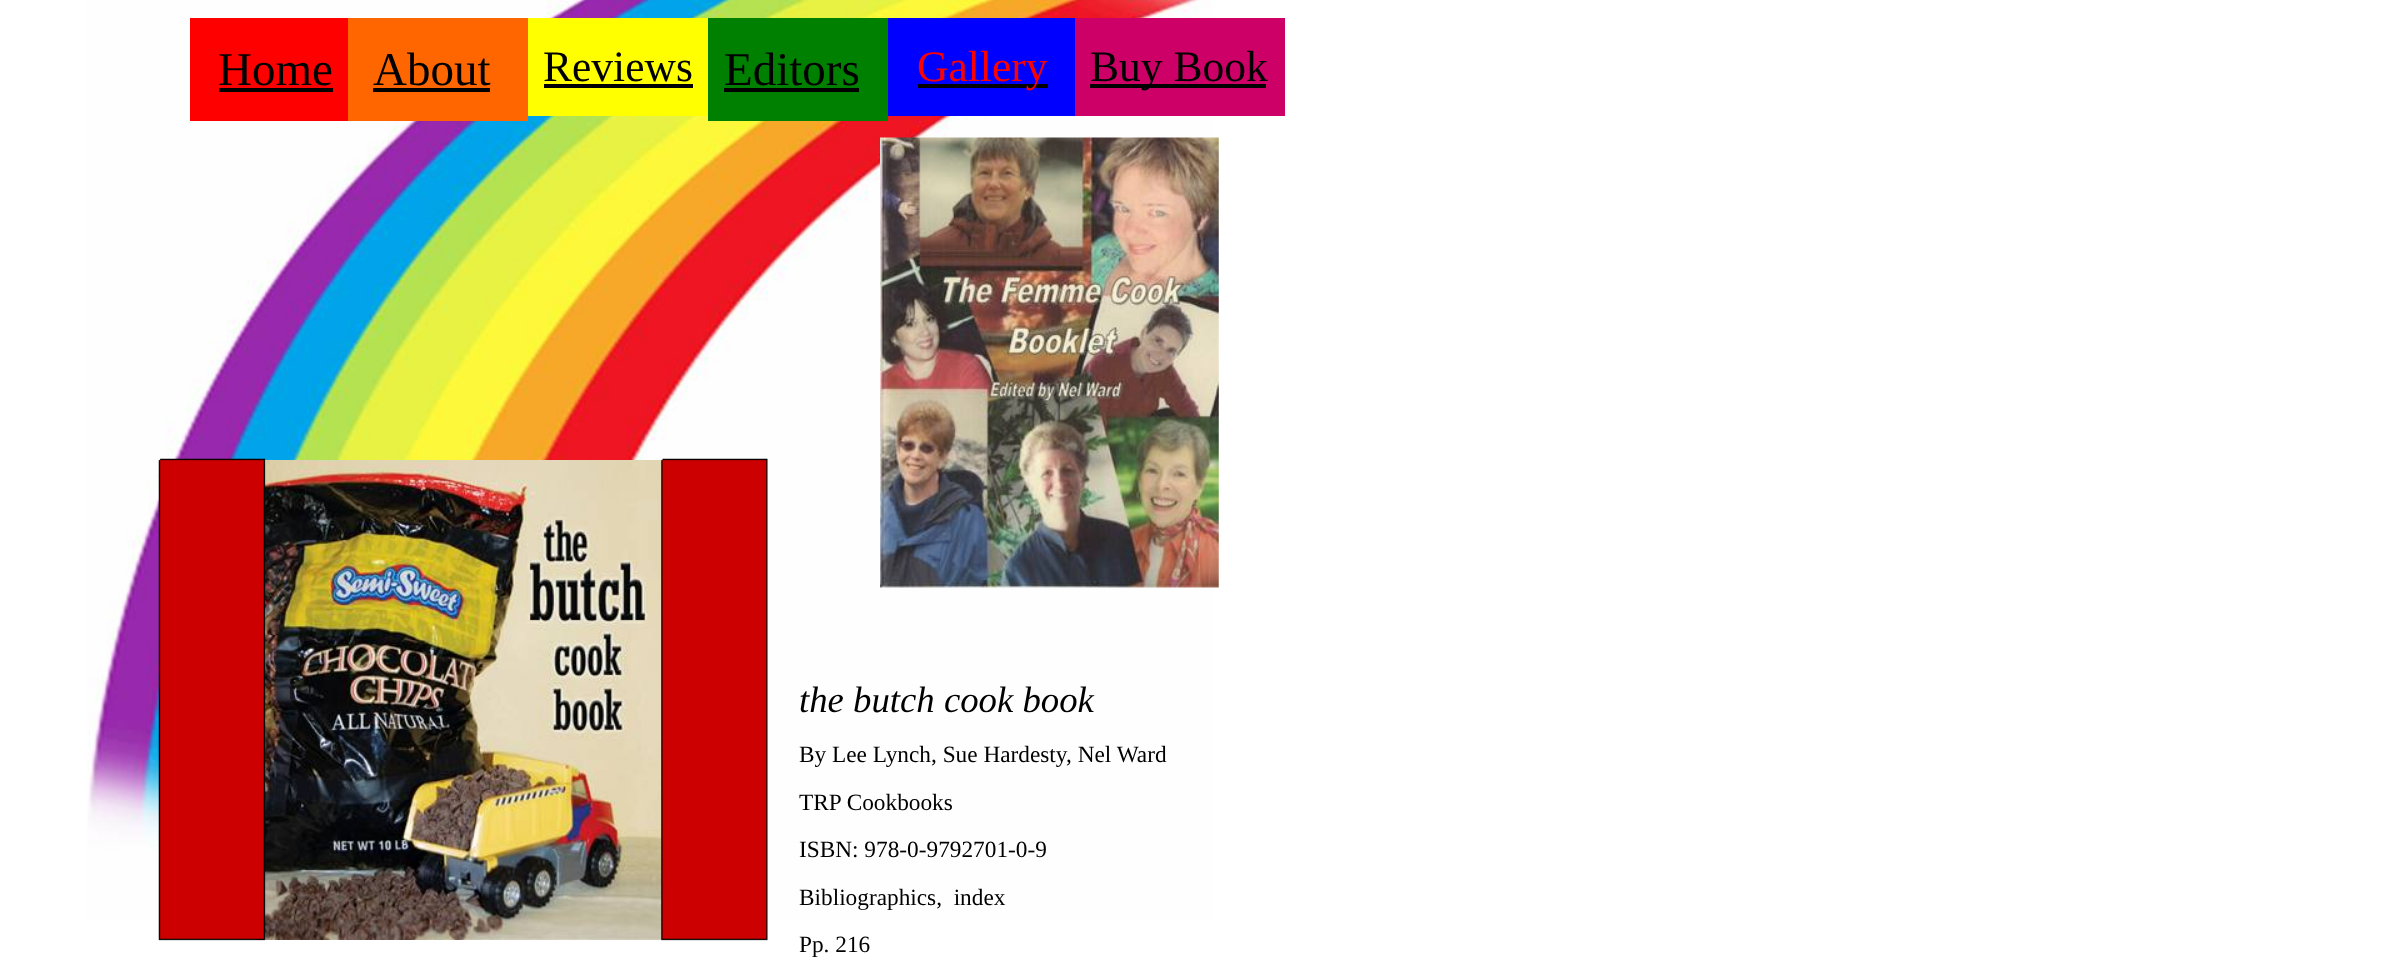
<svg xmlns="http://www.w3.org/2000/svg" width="2400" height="962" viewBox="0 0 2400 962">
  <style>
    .t1 { font: 47px Liberation Serif; fill: #000; }
    .t2 { font: 43.5px Liberation Serif; fill: #000; }
    .t3 { font: 43.5px Liberation Serif; fill: #f00; }
    .t4 { font: italic 36.75px Liberation Serif; fill: #000; }
    .t5 { font: 23.3px Liberation Serif; fill: #000; }
  </style>
  <rect width="100%" height="100%" fill="#fff"/>
  <image x="87" y="0" width="1128" height="920" href="images/1.png"/>
  <rect x="190" y="18" width="158" height="103" fill="#f00"/>
  <text x="218" y="85" class="t1">Home</text>
  <rect x="219" y="88" width="114" height="4" fill="#000"/>
  <rect x="348" y="18" width="180" height="103" fill="#f60"/>
  <text x="373" y="85" class="t1">About</text>
  <rect x="373" y="88" width="117" height="4" fill="#000"/>
  <rect x="528" y="18" width="180" height="98" fill="#ff0"/>
  <text x="543" y="81" class="t2">Reviews</text>
  <rect x="544" y="84" width="149" height="4" fill="#000"/>
  <rect x="708" y="18" width="180" height="103" fill="#008000"/>
  <text x="724" y="85" class="t1">Editors</text>
  <rect x="724" y="88" width="135" height="4" fill="#000"/>
  <rect x="888" y="18" width="187" height="98" fill="#00f"/>
  <rect x="918" y="84" width="130" height="4" fill="#000"/>
  <text x="917" y="81" class="t3">Gallery</text>
  <rect x="1075" y="18" width="210" height="98" fill="#c06"/>
  <rect x="1090" y="84" width="176" height="4" fill="#000"/>
  <text x="1090" y="81" class="t2">Buy Book</text>
  <image x="880" y="137" width="339" height="451" href="images/2.png"/>
  <image x="257" y="460" width="406" height="480" href="images/4.png"/>
  <image x="158" y="458" width="108" height="483" href="images/3.png"/>
  <image x="661" y="458" width="107" height="483" href="images/5.png"/>
  <text x="799" y="712" class="t4">the butch cook book</text>
  <text x="799" y="762" class="t5">By Lee Lynch, Sue Hardesty, Nel Ward</text>
  <text x="799" y="810" class="t5">TRP Cookbooks</text>
  <text x="799" y="857" class="t5">ISBN: 978-0-9792701-0-9</text>
  <text x="799" y="905" class="t5" xml:space="preserve">Bibliographics,  index</text>
  <text x="799" y="952" class="t5">Pp. 216</text>
</svg>
